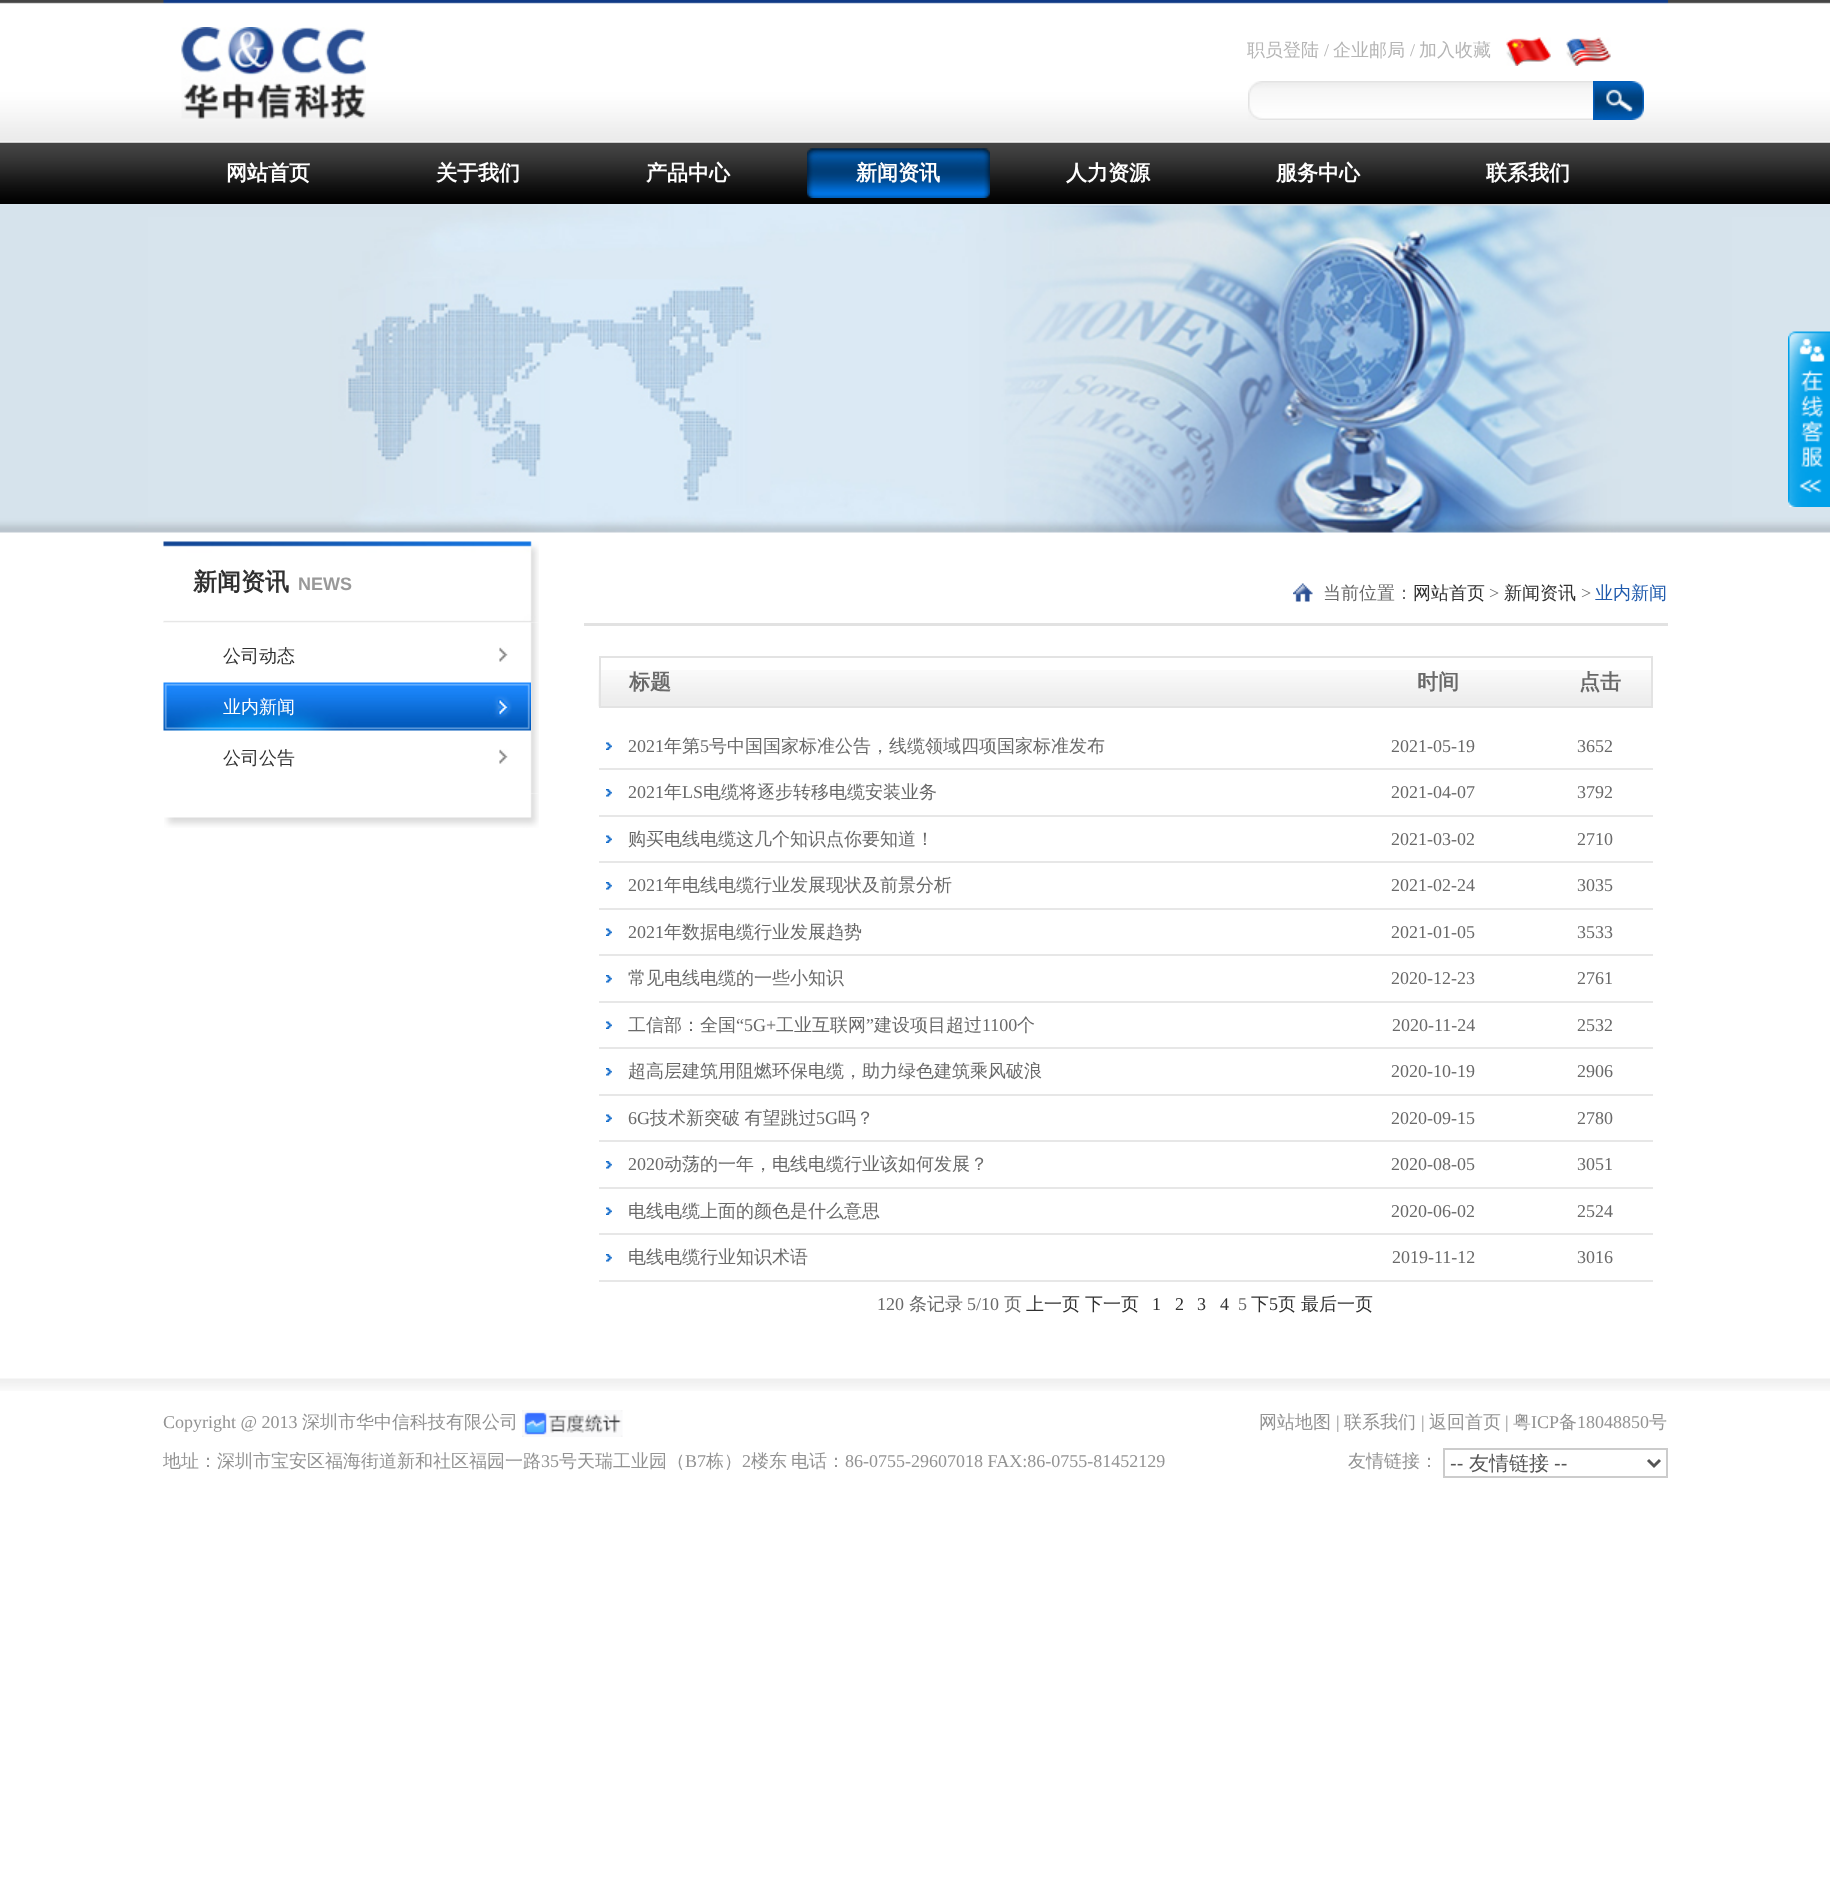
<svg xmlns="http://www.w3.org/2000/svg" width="1830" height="1881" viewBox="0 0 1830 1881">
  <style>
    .t1 { font: 500 18px WenQuanYi Zen Hei; fill: #b5b5b5; }
    .t2 { font: 18px Liberation Serif; fill: #b5b5b5; }
    .t3 { font: bold 21px WenQuanYi Zen Hei; fill: #fff; }
    .t4 { font: bold 24px WenQuanYi Zen Hei; fill: #303030; }
    .t5 { font: bold 18px Liberation Sans; fill: #999; }
    .t6 { font: 500 18px WenQuanYi Zen Hei; fill: #303030; }
    .t7 { font: 500 18px WenQuanYi Zen Hei; fill: #fff; }
    .t8 { font: 500 18px WenQuanYi Zen Hei; fill: #696969; }
    .t9 { font: 18px Liberation Serif; fill: #696969; }
    .t10 { font: 500 18px WenQuanYi Zen Hei; fill: #205bad; }
    .t11 { font: bold 21px WenQuanYi Zen Hei; fill: #696969; }
    .t12 { font: 18px Liberation Serif; fill: #303030; }
    .t13 { font: 18px Liberation Serif; fill: #939393; }
    .t14 { font: 500 18px WenQuanYi Zen Hei; fill: #939393; }
    .t15 { font: 20px Liberation Sans; fill: #555; }
    .t16 { font: 500 20px WenQuanYi Zen Hei; fill: #555; }
  </style>
  <rect width="100%" height="100%" fill="#fff"/>
  <image x="0" y="142" width="1830" height="62" href="images/8.png"/>
  <image x="0" y="0" width="1830" height="143" href="images/1.png"/>
  <image x="163" y="0" width="1505" height="4" href="images/2.png"/>
  <image x="181" y="27" width="185" height="92" href="images/3.png"/>
  <text x="1247" y="56" class="t1">职员登陆</text>
  <text x="1324" y="56" class="t2">/</text>
  <text x="1333" y="56" class="t1">企业邮局</text>
  <text x="1410" y="56" class="t2">/</text>
  <text x="1419" y="56" class="t1">加入收藏</text>
  <image x="1506" y="37" width="45" height="29" href="images/4.png"/>
  <image x="1566" y="37" width="45" height="29" href="images/5.png"/>
  <image x="1248" y="81" width="345" height="39" href="images/6.png"/>
  <image x="1593" y="81" width="51" height="39" href="images/7.png"/>
  <text x="226" y="180" class="t3">网站首页</text>
  <text x="436" y="180" class="t3">关于我们</text>
  <text x="646" y="180" class="t3">产品中心</text>
  <image x="807" y="148" width="183" height="50" href="images/9.png"/>
  <image x="810" y="148" width="178" height="1" href="images/10.png"/>
  <text x="856" y="180" class="t3">新闻资讯</text>
  <text x="1066" y="180" class="t3">人力资源</text>
  <text x="1276" y="180" class="t3">服务中心</text>
  <text x="1486" y="180" class="t3">联系我们</text>
  <image x="0" y="204" width="1830" height="329" href="images/11.png"/>
  <image x="1788" y="331" width="42" height="176" href="images/12.png"/>
  <image x="163" y="541" width="376" height="82" href="images/13.png"/>
  <text x="193" y="590" class="t4">新闻资讯</text>
  <text x="298" y="590" class="t5">NEWS</text>
  <image x="164" y="622" width="375" height="172" href="images/14.png"/>
  <image x="499" y="647" width="9" height="15" href="images/15.png"/>
  <text x="223" y="662" class="t6">公司动态</text>
  <image x="163" y="682" width="368" height="49" href="images/16.png"/>
  <text x="223" y="713" class="t7">业内新闻</text>
  <image x="499" y="749" width="9" height="15" href="images/15.png"/>
  <text x="223" y="764" class="t6">公司公告</text>
  <image x="164" y="793" width="375" height="35" href="images/17.png"/>
  <rect x="584" y="623" width="1084" height="3" fill="#e2e2e2"/>
  <image x="1293" y="583" width="20" height="19" href="images/18.png"/>
  <text x="1323" y="599" class="t8">当前位置：</text>
  <text x="1413" y="599" class="t6">网站首页</text>
  <text x="1489" y="599" class="t9">&gt;</text>
  <text x="1504" y="599" class="t6">新闻资讯</text>
  <text x="1581" y="599" class="t9">&gt;</text>
  <text x="1595" y="599" class="t10">业内新闻</text>
  <image x="598" y="670" width="1053" height="37" href="images/19.png"/>
  <rect x="600" y="657" width="1052" height="50" fill="none" stroke="#e3e3e3" stroke-width="2"/>
  <text x="629" y="689" class="t11">标题</text>
  <text x="1417" y="689" class="t11">时间</text>
  <text x="1579" y="689" class="t11">点击</text>
  <image x="606" y="742" width="6" height="8" href="images/20.png"/>
  <rect x="599" y="768" width="1054" height="2" fill="#e7e7e7"/>
  <text x="628" y="752" class="t9">2021</text>
  <text x="664" y="752" class="t8">年第</text>
  <text x="700" y="752" class="t9">5</text>
  <text x="709" y="752" class="t8">号中国国家标准公告，线缆领域四项国家标准发布</text>
  <text x="1391" y="752" class="t9">2021-05-19</text>
  <text x="1577" y="752" class="t9">3652</text>
  <image x="606" y="789" width="6" height="8" href="images/21.png"/>
  <rect x="599" y="815" width="1054" height="2" fill="#e7e7e7"/>
  <text x="628" y="798" class="t9">2021</text>
  <text x="664" y="798" class="t8">年</text>
  <text x="682" y="798" class="t9">LS</text>
  <text x="703" y="798" class="t8">电缆将逐步转移电缆安装业务</text>
  <text x="1391" y="798" class="t9">2021-04-07</text>
  <text x="1577" y="798" class="t9">3792</text>
  <image x="606" y="835" width="6" height="8" href="images/20.png"/>
  <rect x="599" y="861" width="1054" height="2" fill="#e7e7e7"/>
  <text x="628" y="845" class="t8">购买电线电缆这几个知识点你要知道！</text>
  <text x="1391" y="845" class="t9">2021-03-02</text>
  <text x="1577" y="845" class="t9">2710</text>
  <image x="606" y="882" width="6" height="8" href="images/21.png"/>
  <rect x="599" y="908" width="1054" height="2" fill="#e7e7e7"/>
  <text x="628" y="891" class="t9">2021</text>
  <text x="664" y="891" class="t8">年电线电缆行业发展现状及前景分析</text>
  <text x="1391" y="891" class="t9">2021-02-24</text>
  <text x="1577" y="891" class="t9">3035</text>
  <image x="606" y="928" width="6" height="8" href="images/20.png"/>
  <rect x="599" y="954" width="1054" height="2" fill="#e7e7e7"/>
  <text x="628" y="938" class="t9">2021</text>
  <text x="664" y="938" class="t8">年数据电缆行业发展趋势</text>
  <text x="1391" y="938" class="t9">2021-01-05</text>
  <text x="1577" y="938" class="t9">3533</text>
  <image x="606" y="975" width="6" height="8" href="images/21.png"/>
  <rect x="599" y="1001" width="1054" height="2" fill="#e7e7e7"/>
  <text x="628" y="984" class="t8">常见电线电缆的一些小知识</text>
  <text x="1391" y="984" class="t9">2020-12-23</text>
  <text x="1577" y="984" class="t9">2761</text>
  <image x="606" y="1021" width="6" height="8" href="images/20.png"/>
  <rect x="599" y="1047" width="1054" height="2" fill="#e7e7e7"/>
  <text x="628" y="1031" class="t8">工信部：全国</text>
  <text x="736" y="1031" class="t9">“5G+</text>
  <text x="776" y="1031" class="t8">工业互联网</text>
  <text x="866" y="1031" class="t9">”</text>
  <text x="874" y="1031" class="t8">建设项目超过</text>
  <text x="982" y="1031" class="t9">1100</text>
  <text x="1017" y="1031" class="t8">个</text>
  <text x="1392" y="1031" class="t9">2020-11-24</text>
  <text x="1577" y="1031" class="t9">2532</text>
  <image x="606" y="1068" width="6" height="8" href="images/21.png"/>
  <rect x="599" y="1094" width="1054" height="2" fill="#e7e7e7"/>
  <text x="628" y="1077" class="t8">超高层建筑用阻燃环保电缆，助力绿色建筑乘风破浪</text>
  <text x="1391" y="1077" class="t9">2020-10-19</text>
  <text x="1577" y="1077" class="t9">2906</text>
  <image x="606" y="1114" width="6" height="8" href="images/20.png"/>
  <rect x="599" y="1140" width="1054" height="2" fill="#e7e7e7"/>
  <text x="628" y="1124" class="t9">6G</text>
  <text x="650" y="1124" word-spacing="-1" class="t8">技术新突破 有望跳过</text>
  <text x="816" y="1124" class="t9">5G</text>
  <text x="838" y="1124" class="t8">吗？</text>
  <text x="1391" y="1124" class="t9">2020-09-15</text>
  <text x="1577" y="1124" class="t9">2780</text>
  <image x="606" y="1161" width="6" height="8" href="images/21.png"/>
  <rect x="599" y="1187" width="1054" height="2" fill="#e7e7e7"/>
  <text x="628" y="1170" class="t9">2020</text>
  <text x="664" y="1170" class="t8">动荡的一年，电线电缆行业该如何发展？</text>
  <text x="1391" y="1170" class="t9">2020-08-05</text>
  <text x="1577" y="1170" class="t9">3051</text>
  <image x="606" y="1207" width="6" height="8" href="images/20.png"/>
  <rect x="599" y="1233" width="1054" height="2" fill="#e7e7e7"/>
  <text x="628" y="1217" class="t8">电线电缆上面的颜色是什么意思</text>
  <text x="1391" y="1217" class="t9">2020-06-02</text>
  <text x="1577" y="1217" class="t9">2524</text>
  <image x="606" y="1254" width="6" height="8" href="images/21.png"/>
  <rect x="599" y="1280" width="1054" height="2" fill="#e7e7e7"/>
  <text x="628" y="1263" class="t8">电线电缆行业知识术语</text>
  <text x="1392" y="1263" class="t9">2019-11-12</text>
  <text x="1577" y="1263" class="t9">3016</text>
  <text x="877" y="1310" class="t9">120</text>
  <text x="909" y="1310" class="t8">条记录</text>
  <text x="967" y="1310" class="t9">5/10</text>
  <text x="1004" y="1310" class="t8">页</text>
  <text x="1026" y="1310" class="t6">上一页</text>
  <text x="1085" y="1310" class="t6">下一页</text>
  <text x="1152" y="1310" class="t12">1</text>
  <text x="1175" y="1310" class="t12">2</text>
  <text x="1197" y="1310" class="t12">3</text>
  <text x="1220" y="1310" class="t12">4</text>
  <text x="1238" y="1310" class="t9">5</text>
  <text x="1251" y="1310" class="t6">下</text>
  <text x="1269" y="1310" class="t12">5</text>
  <text x="1278" y="1310" class="t6">页</text>
  <text x="1301" y="1310" class="t6">最后一页</text>
  <image x="0" y="1378" width="1830" height="13" href="images/22.png"/>
  <text x="163" y="1428" class="t13">Copyright @ 2013</text>
  <text x="302" y="1428" class="t14">深圳市华中信科技有限公司</text>
  <image x="522" y="1410" width="101" height="27" href="images/23.png"/>
  <text x="1259" y="1428" class="t14">网站地图</text>
  <text x="1336" y="1428" class="t13">|</text>
  <text x="1344" y="1428" class="t14">联系我们</text>
  <text x="1421" y="1428" class="t13">|</text>
  <text x="1429" y="1428" class="t14">返回首页</text>
  <text x="1505" y="1428" class="t13">|</text>
  <text x="1513" y="1428" class="t14">粤</text>
  <text x="1531" y="1428" class="t13">ICP</text>
  <text x="1559" y="1428" class="t14">备</text>
  <text x="1577" y="1428" class="t13">18048850</text>
  <text x="1649" y="1428" class="t14">号</text>
  <text x="163" y="1467" class="t14">地址：深圳市宝安区福海街道新和社区福园一路</text>
  <text x="541" y="1467" class="t13">35</text>
  <text x="559" y="1467" class="t14">号天瑞工业园（</text>
  <text x="685" y="1467" class="t13">B7</text>
  <text x="706" y="1467" class="t14">栋）</text>
  <text x="742" y="1467" class="t13">2</text>
  <text x="751" y="1467" class="t14">楼东</text>
  <text x="791" y="1467" class="t14">电话：</text>
  <text x="845" y="1467" class="t13">86-0755-29607018 FAX:86-0755-81452129</text>
  <text x="1348" y="1467" class="t14">友情链接：</text>
  <rect x="1444" y="1449" width="223" height="28" fill="none" stroke="#ccc" stroke-width="2"/>
  <path d="M1648 1460L1654 1466L1660 1460" fill="none" stroke="#555" stroke-width="3"/>
  <text x="1450" y="1470" class="t15">--</text>
  <text x="1469" y="1470" class="t16">友情链接</text>
  <text x="1554" y="1470" class="t15">--</text>
</svg>
